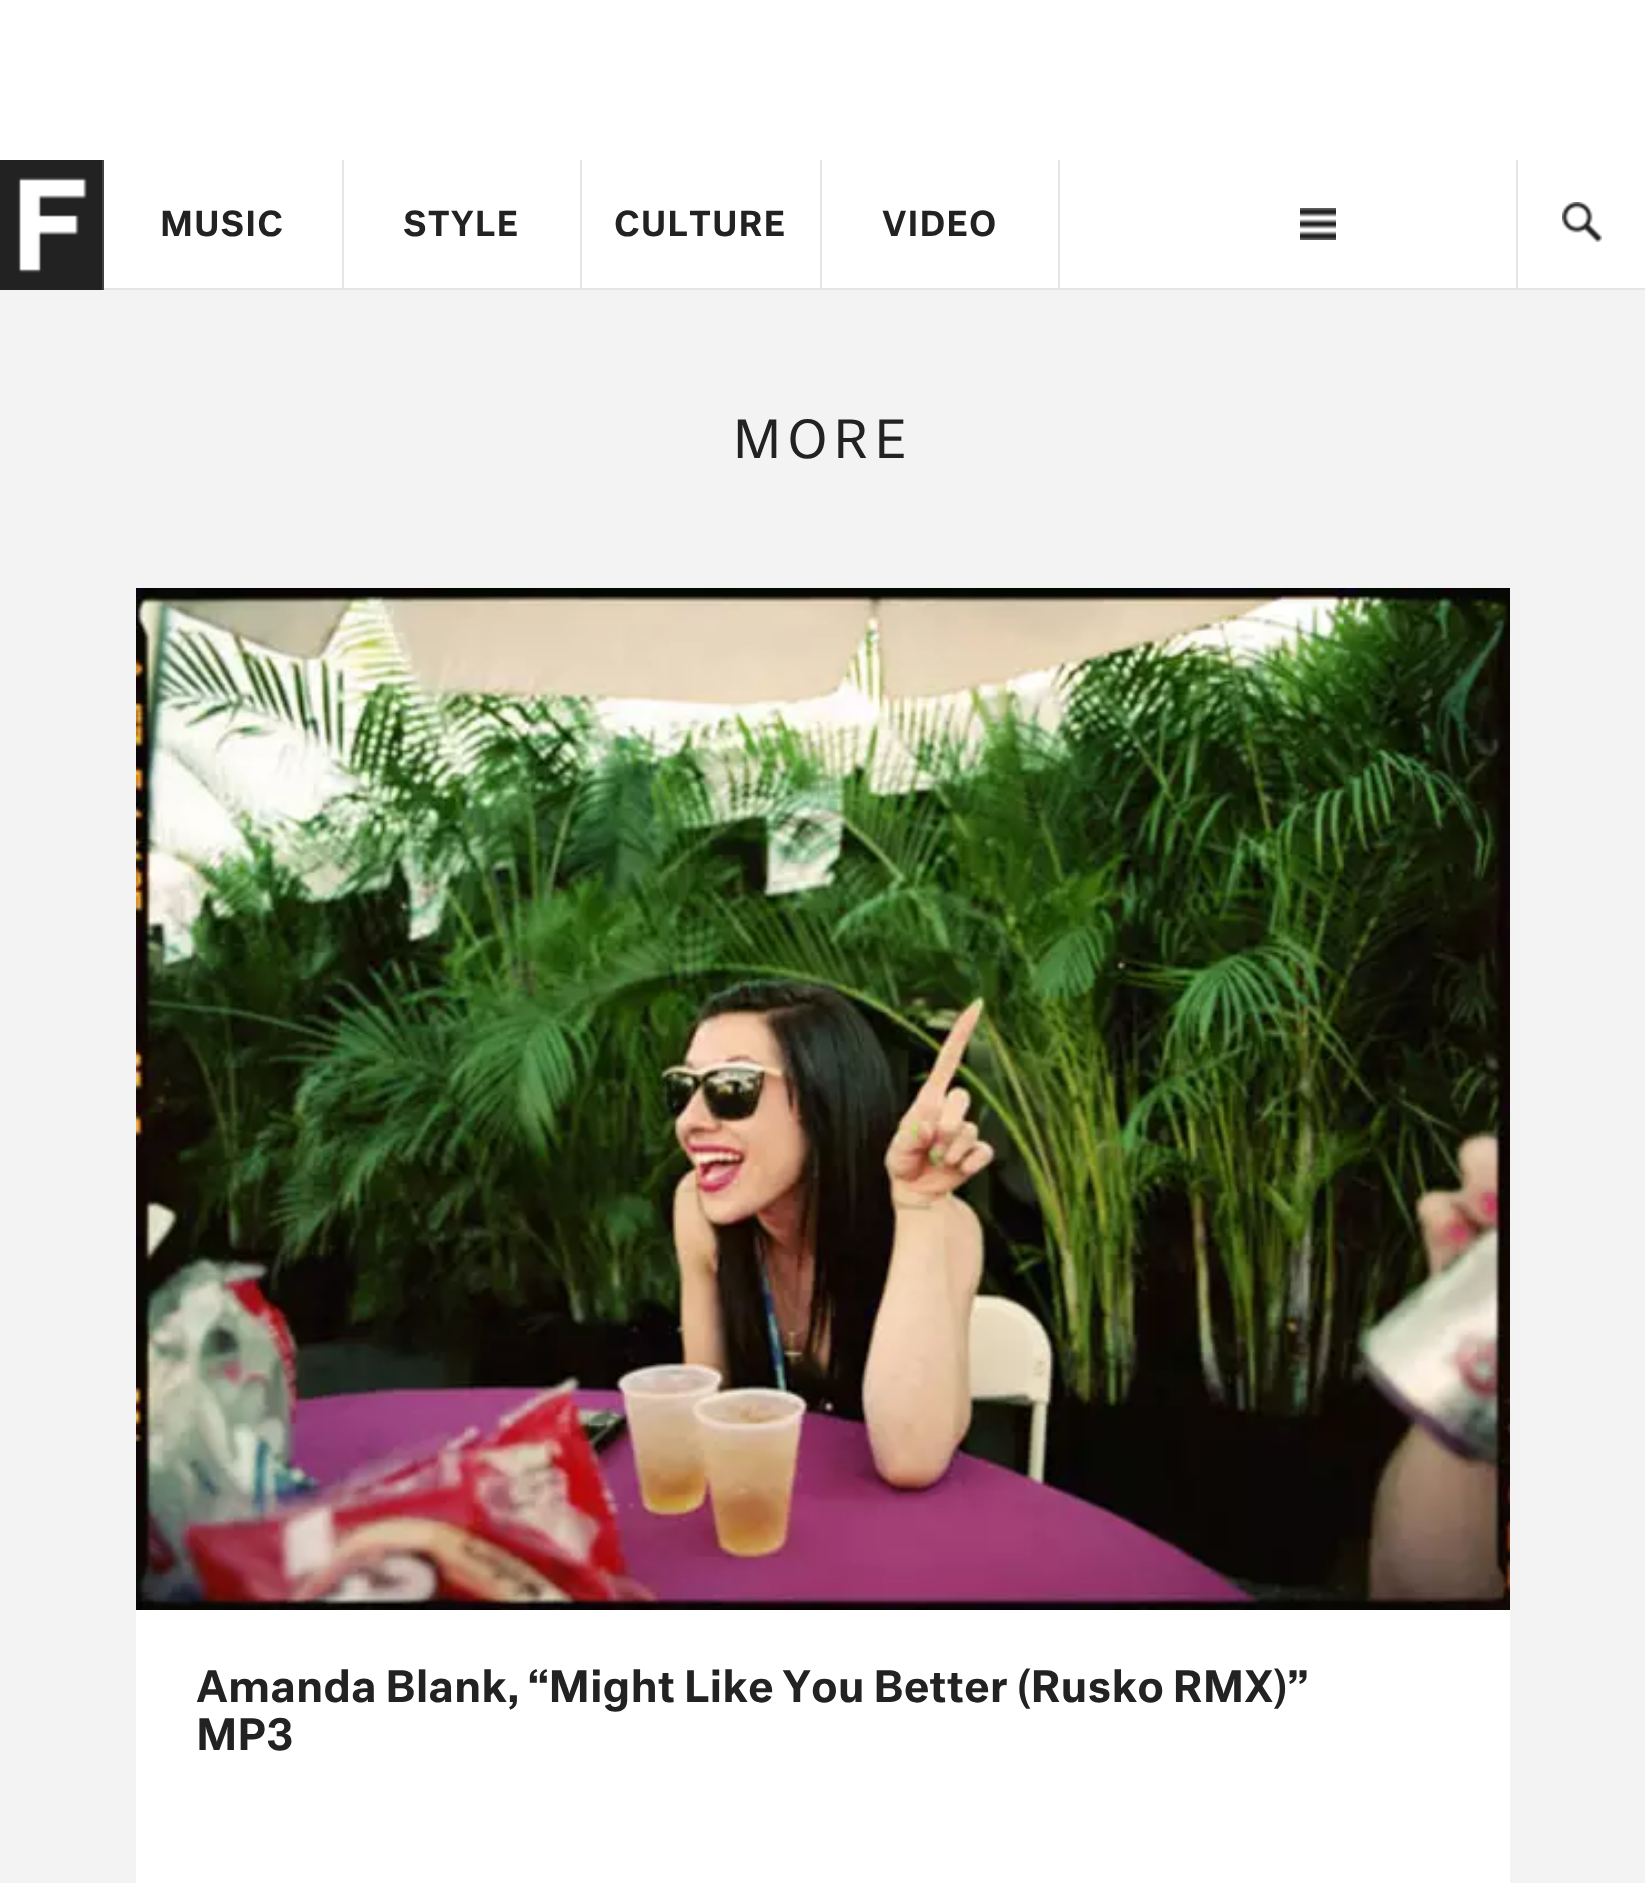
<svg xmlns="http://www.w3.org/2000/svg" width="1645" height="1883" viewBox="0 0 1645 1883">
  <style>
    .t1 { font: 500 33.5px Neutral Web; letter-spacing: 1px; fill: #222; }
    .t2 { font: 51px Neutral Web; letter-spacing: 6px; fill: #222; }
    .t3 { font: 500 42px Neutral Web; fill: #222; }
  </style>
  <rect width="100%" height="100%" fill="#fff"/>
  <rect x="102" y="160" width="2" height="130" fill="#444"/>
  <image x="0" y="160" width="102" height="130" href="images/1.png"/>
  <rect x="342" y="160" width="2" height="130" fill="#e5e5e5"/>
  <rect x="104" y="288" width="240" height="2" fill="#e5e5e5"/>
  <text x="160" y="236" class="t1">MUSIC</text>
  <rect x="580" y="160" width="2" height="130" fill="#e5e5e5"/>
  <rect x="344" y="288" width="238" height="2" fill="#e5e5e5"/>
  <text x="403" y="236" class="t1">STYLE</text>
  <rect x="820" y="160" width="2" height="130" fill="#e5e5e5"/>
  <rect x="582" y="288" width="240" height="2" fill="#e5e5e5"/>
  <text x="614" y="236" class="t1">CULTURE</text>
  <rect x="1058" y="160" width="2" height="130" fill="#e5e5e5"/>
  <rect x="822" y="288" width="238" height="2" fill="#e5e5e5"/>
  <text x="882" y="236" class="t1">VIDEO</text>
  <rect x="1060" y="288" width="585" height="2" fill="#e5e5e5"/>
  <image x="1300" y="208" width="36" height="32" href="images/2.png"/>
  <rect x="1516" y="160" width="2" height="130" fill="#e5e5e5"/>
  <image x="1562" y="202" width="40" height="40" href="images/3.png"/>
  <rect x="0" y="290" width="1645" height="1593" fill="#f3f3f3"/>
  <text x="733" y="458" class="t2">MORE</text>
  <rect x="136" y="1610" width="1374" height="273" fill="#fff"/>
  <image x="136" y="588" width="1374" height="1022" href="images/4.png"/>
  <text x="196" y="1702" class="t3">Amanda Blank, “Might Like You Better (Rusko RMX)”</text>
  <text x="196" y="1750" class="t3">MP3</text>
</svg>
